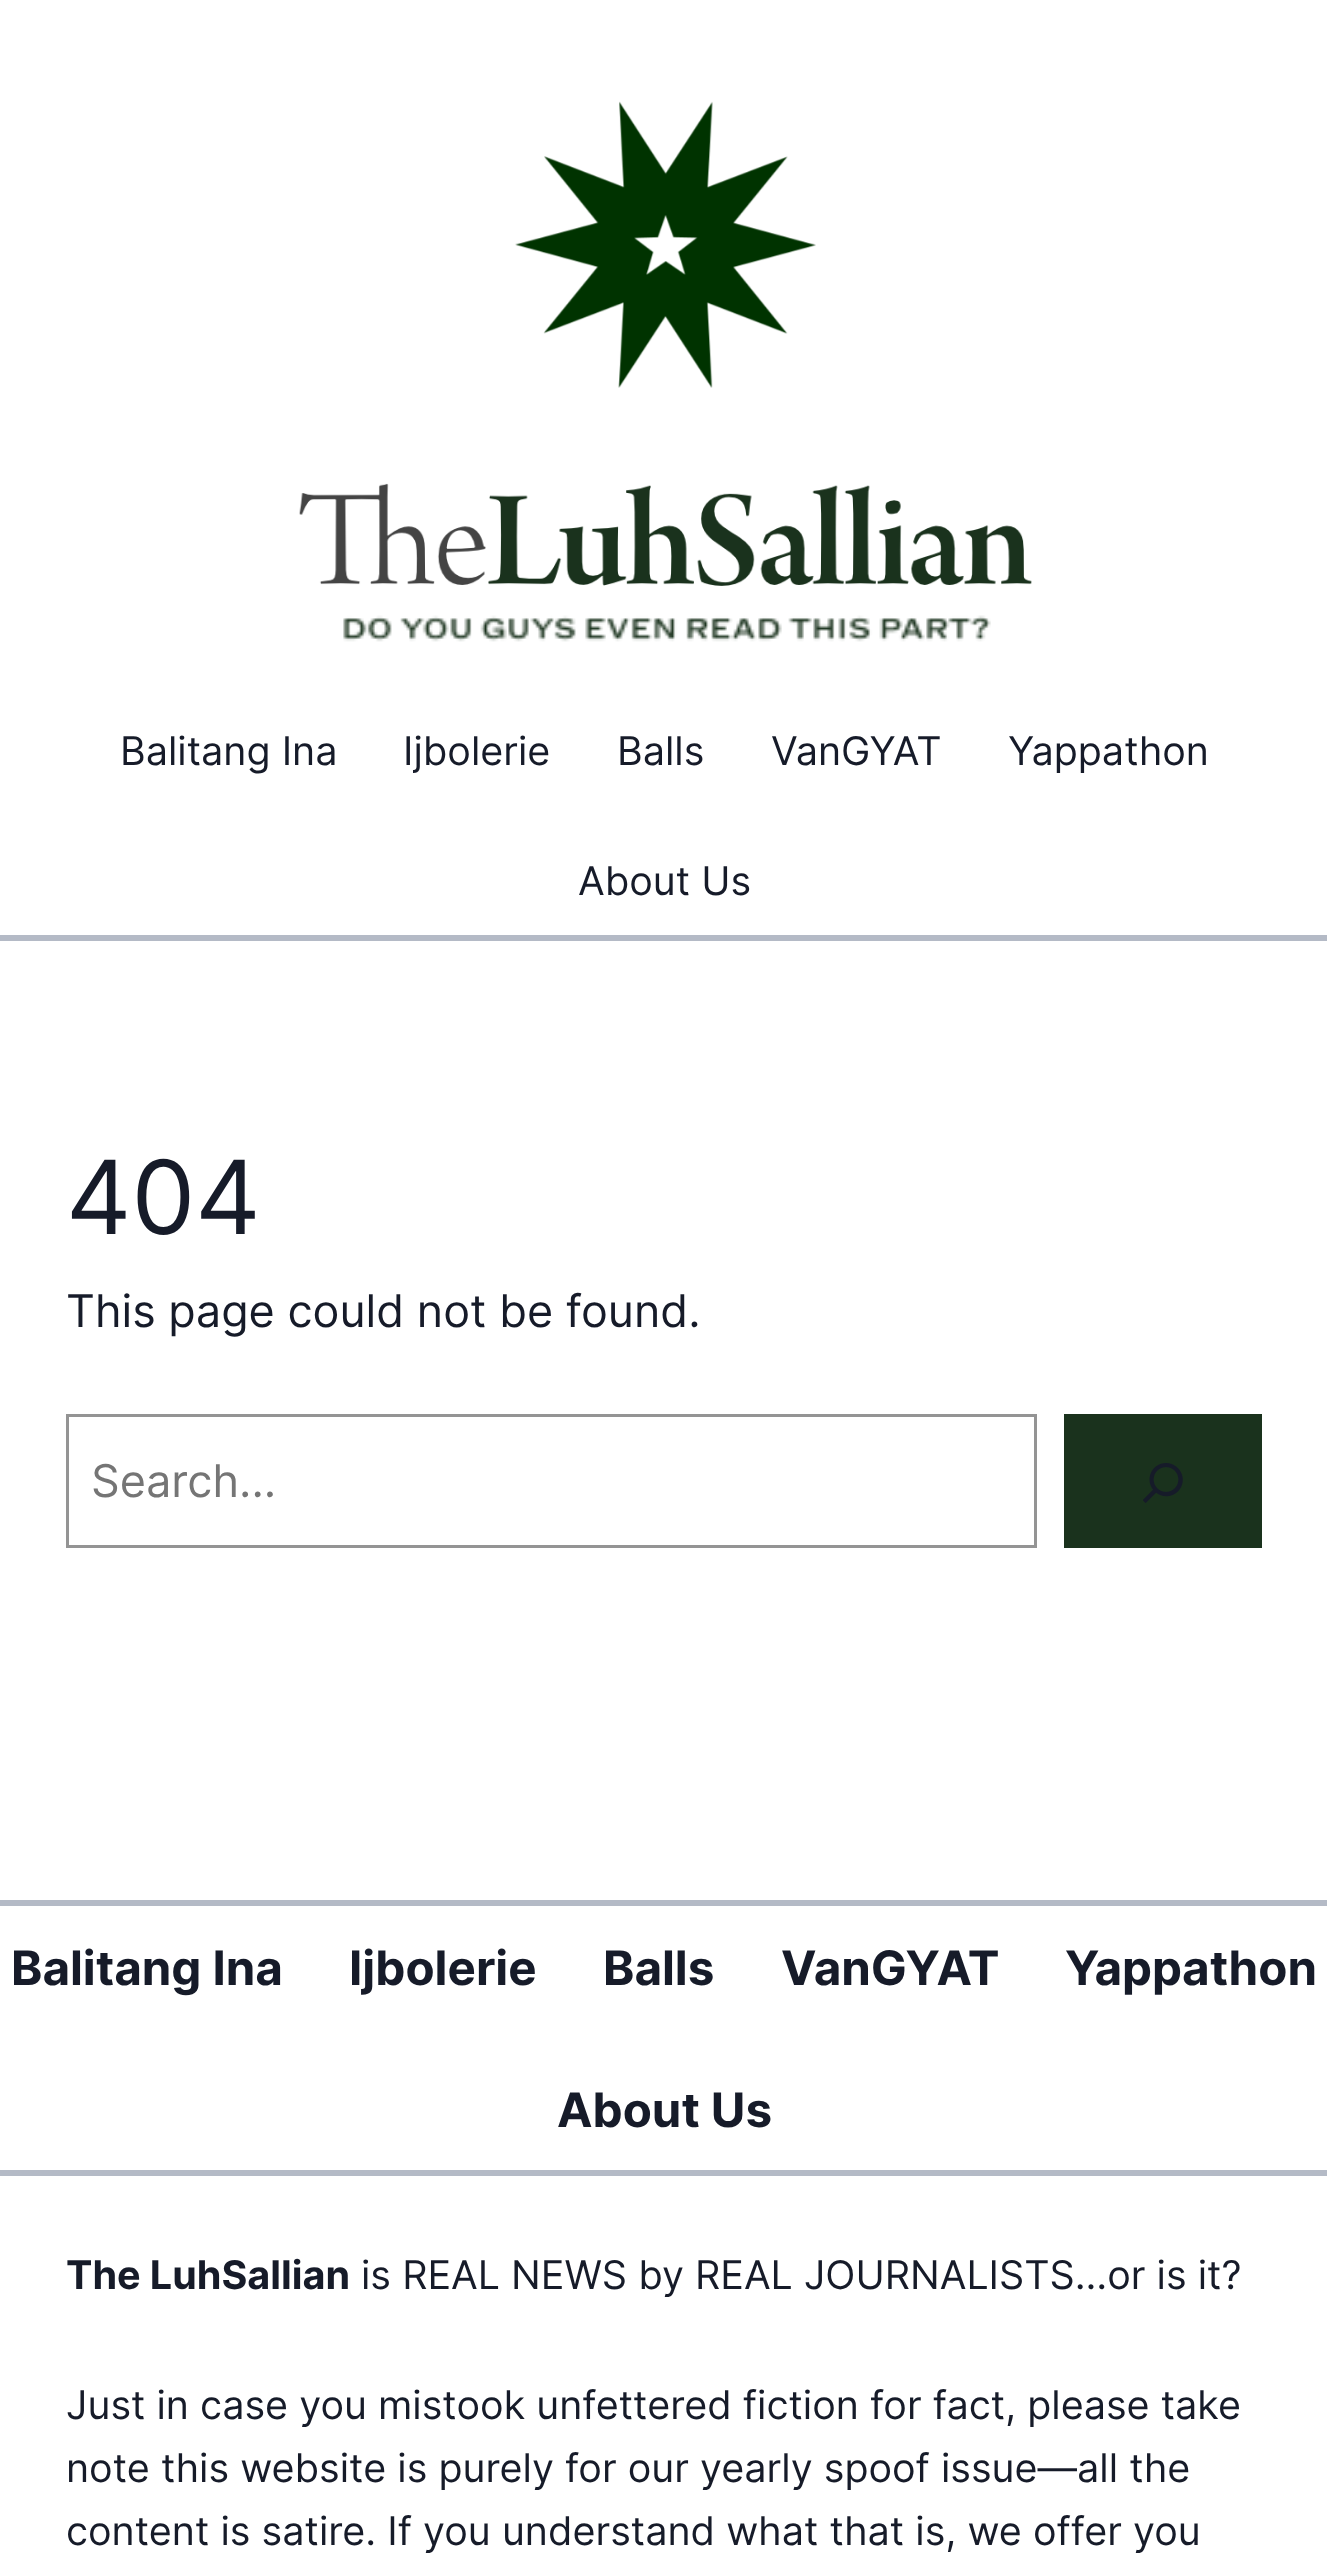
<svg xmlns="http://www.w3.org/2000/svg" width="1327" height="2558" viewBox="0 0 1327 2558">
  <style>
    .t1 { font: 39.5px Inter; fill: #161b29; }
    .t2 { font: 102px Inter; fill: #161b29; }
    .t3 { font: 45px Inter; fill: #161b29; }
    .t4 { font: 45px Inter; fill: #757575; }
    .t5 { font: bold 47.5px Inter; fill: #161b29; }
    .t6 { font: bold 39.5px Inter; fill: #161b29; }
  </style>
  <rect width="100%" height="100%" fill="#fff"/>
  <image x="515" y="101" width="301" height="287" href="images/1.png"/>
  <image x="299" y="483" width="733" height="103" href="images/2.png"/>
  <image x="343" y="615" width="648" height="27" href="images/3.png"/>
  <text x="120" y="765" class="t1">Balitang Ina</text>
  <text x="403" y="765" class="t1">Ijbolerie</text>
  <text x="617" y="765" class="t1">Balls</text>
  <text x="771" y="765" class="t1">VanGYAT</text>
  <text x="1008" y="765" class="t1">Yappathon</text>
  <text x="578" y="895" class="t1">About Us</text>
  <rect x="0" y="935" width="1327" height="6" fill="#b4bac6"/>
  <text x="66" y="1234" class="t2">404</text>
  <text x="66" y="1327" class="t3">This page could not be found.</text>
  <rect x="67.5" y="1415.5" width="968" height="131" fill="none" stroke="#949494" stroke-width="3"/>
  <text x="91" y="1497" class="t4">Search...</text>
  <rect x="1064" y="1414" width="198" height="134" fill="#1a321d"/>
  <image x="1143" y="1463" width="40" height="40" href="images/4.png"/>
  <rect x="0" y="1900" width="1327" height="6" fill="#b4bac6"/>
  <text x="11" y="1985" class="t5">Balitang Ina</text>
  <text x="349" y="1985" class="t5">Ijbolerie</text>
  <text x="603" y="1985" class="t5">Balls</text>
  <text x="781" y="1985" class="t5">VanGYAT</text>
  <text x="1065" y="1985" class="t5">Yappathon</text>
  <text x="557" y="2127" class="t5">About Us</text>
  <rect x="0" y="2170" width="1327" height="6" fill="#b4bac6"/>
  <text x="66" y="2289" class="t6">The LuhSallian</text>
  <text x="361" y="2289" class="t1">is REAL NEWS by REAL JOURNALISTS…or is it?</text>
  <text x="66" y="2419" class="t1">Just in case you mistook unfettered fiction for fact, please take</text>
  <text x="66" y="2482" class="t1">note this website is purely for our yearly spoof issue—all the</text>
  <text x="66" y="2545" class="t1">content is satire. If you understand what that is, we offer you</text>
</svg>
